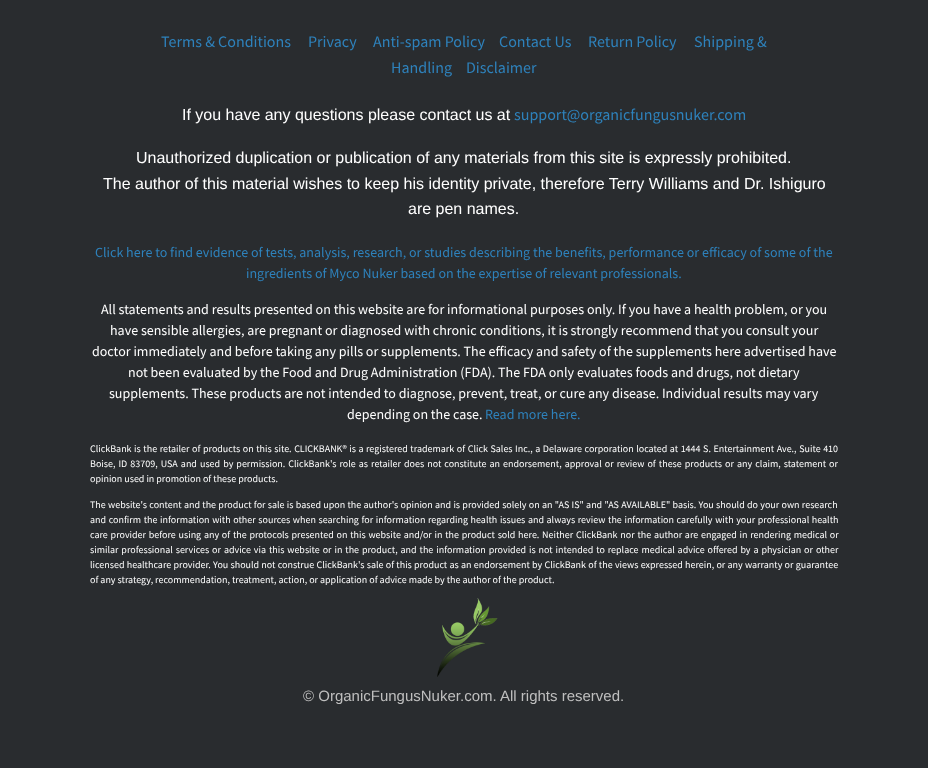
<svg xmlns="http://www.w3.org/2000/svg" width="928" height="768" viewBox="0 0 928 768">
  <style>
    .t1 { font: 16px Source Sans Pro; fill: #2e82bc; }
    .t2 { font: 16px Liberation Sans; fill: #fff; }
    .t3 { font: 14px Source Sans Pro; fill: #2e82bc; }
    .t4 { font: 14px Source Sans Pro; fill: #fff; }
    .t5 { font: 10px Source Sans Pro; fill: #fff; }
    .t6 { font: 15px Liberation Sans; fill: #bfbfbf; }
  </style>
  <rect width="100%" height="100%" fill="#292c2f"/>
  <text x="161" y="47" class="t1">Terms &amp; Conditions</text>
  <text x="308" y="47" class="t1">Privacy</text>
  <text x="373" y="47" class="t1">Anti-spam Policy</text>
  <text x="499" y="47" class="t1">Contact Us</text>
  <text x="588" y="47" class="t1">Return Policy</text>
  <text x="694" y="47" class="t1">Shipping &amp;</text>
  <text x="391" y="73" class="t1">Handling</text>
  <text x="466" y="73" class="t1">Disclaimer</text>
  <text x="182" y="120" class="t2">If you have any questions please contact us at</text>
  <text x="514" y="120" class="t1">support@organicfungusnuker.com</text>
  <text x="136" y="163" class="t2">Unauthorized duplication or publication of any materials from this site is expressly prohibited.</text>
  <text x="103" y="189" class="t2">The author of this material wishes to keep his identity private, therefore Terry Williams and Dr. Ishiguro</text>
  <text x="408" y="214" class="t2">are pen names.</text>
  <text x="95" y="257" class="t3">Click here to find evidence of tests, analysis, research, or studies describing the benefits, performance or efficacy of some of the</text>
  <text x="246" y="278" class="t3">ingredients of Myco Nuker based on the expertise of relevant professionals.</text>
  <text x="101" y="314" class="t4">All statements and results presented on this website are for informational purposes only. If you have a health problem, or you</text>
  <text x="110" y="335" class="t4">have sensible allergies, are pregnant or diagnosed with chronic conditions, it is strongly recommend that you consult your</text>
  <text x="92" y="356" class="t4">doctor immediately and before taking any pills or supplements. The efficacy and safety of the supplements here advertised have</text>
  <text x="128" y="377" class="t4">not been evaluated by the Food and Drug Administration (FDA). The FDA only evaluates foods and drugs, not dietary</text>
  <text x="109" y="398" class="t4">supplements. These products are not intended to diagnose, prevent, treat, or cure any disease. Individual results may vary</text>
  <text x="347" y="419" class="t4">depending on the case.</text>
  <text x="485" y="419" class="t3">Read more here.</text>
  <text x="90" y="452" word-spacing="0.55" class="t5">ClickBank is the retailer of products on this site. CLICKBANK® is a registered trademark of Click Sales Inc., a Delaware corporation located at 1444 S. Entertainment Ave., Suite 410</text>
  <text x="90" y="467" word-spacing="1.05" class="t5">Boise, ID 83709, USA and used by permission. ClickBank's role as retailer does not constitute an endorsement, approval or review of these products or any claim, statement or</text>
  <text x="90" y="482" class="t5">opinion used in promotion of these products.</text>
  <text x="90" y="508" word-spacing="0.3" class="t5">The website's content and the product for sale is based upon the author's opinion and is provided solely on an "AS IS" and "AS AVAILABLE" basis. You should do your own research</text>
  <text x="90" y="523" word-spacing="0.6" class="t5">and confirm the information with other sources when searching for information regarding health issues and always review the information carefully with your professional health</text>
  <text x="90" y="538" word-spacing="0.75" class="t5">care provider before using any of the protocols presented on this website and/or in the product sold here. Neither ClickBank nor the author are engaged in rendering medical or</text>
  <text x="90" y="553" word-spacing="0.9" class="t5">similar professional services or advice via this website or in the product, and the information provided is not intended to replace medical advice offered by a physician or other</text>
  <text x="90" y="568" word-spacing="0.25" class="t5">licensed healthcare provider. You should not construe ClickBank's sale of this product as an endorsement by ClickBank of the views expressed herein, or any warranty or guarantee</text>
  <text x="90" y="583" class="t5">of any strategy, recommendation, treatment, action, or application of advice made by the author of the product.</text>
  <image x="437" y="598" width="61" height="79" href="images/1.png"/>
  <text x="303" y="701" class="t6">© OrganicFungusNuker.com. All rights reserved.</text>
</svg>
